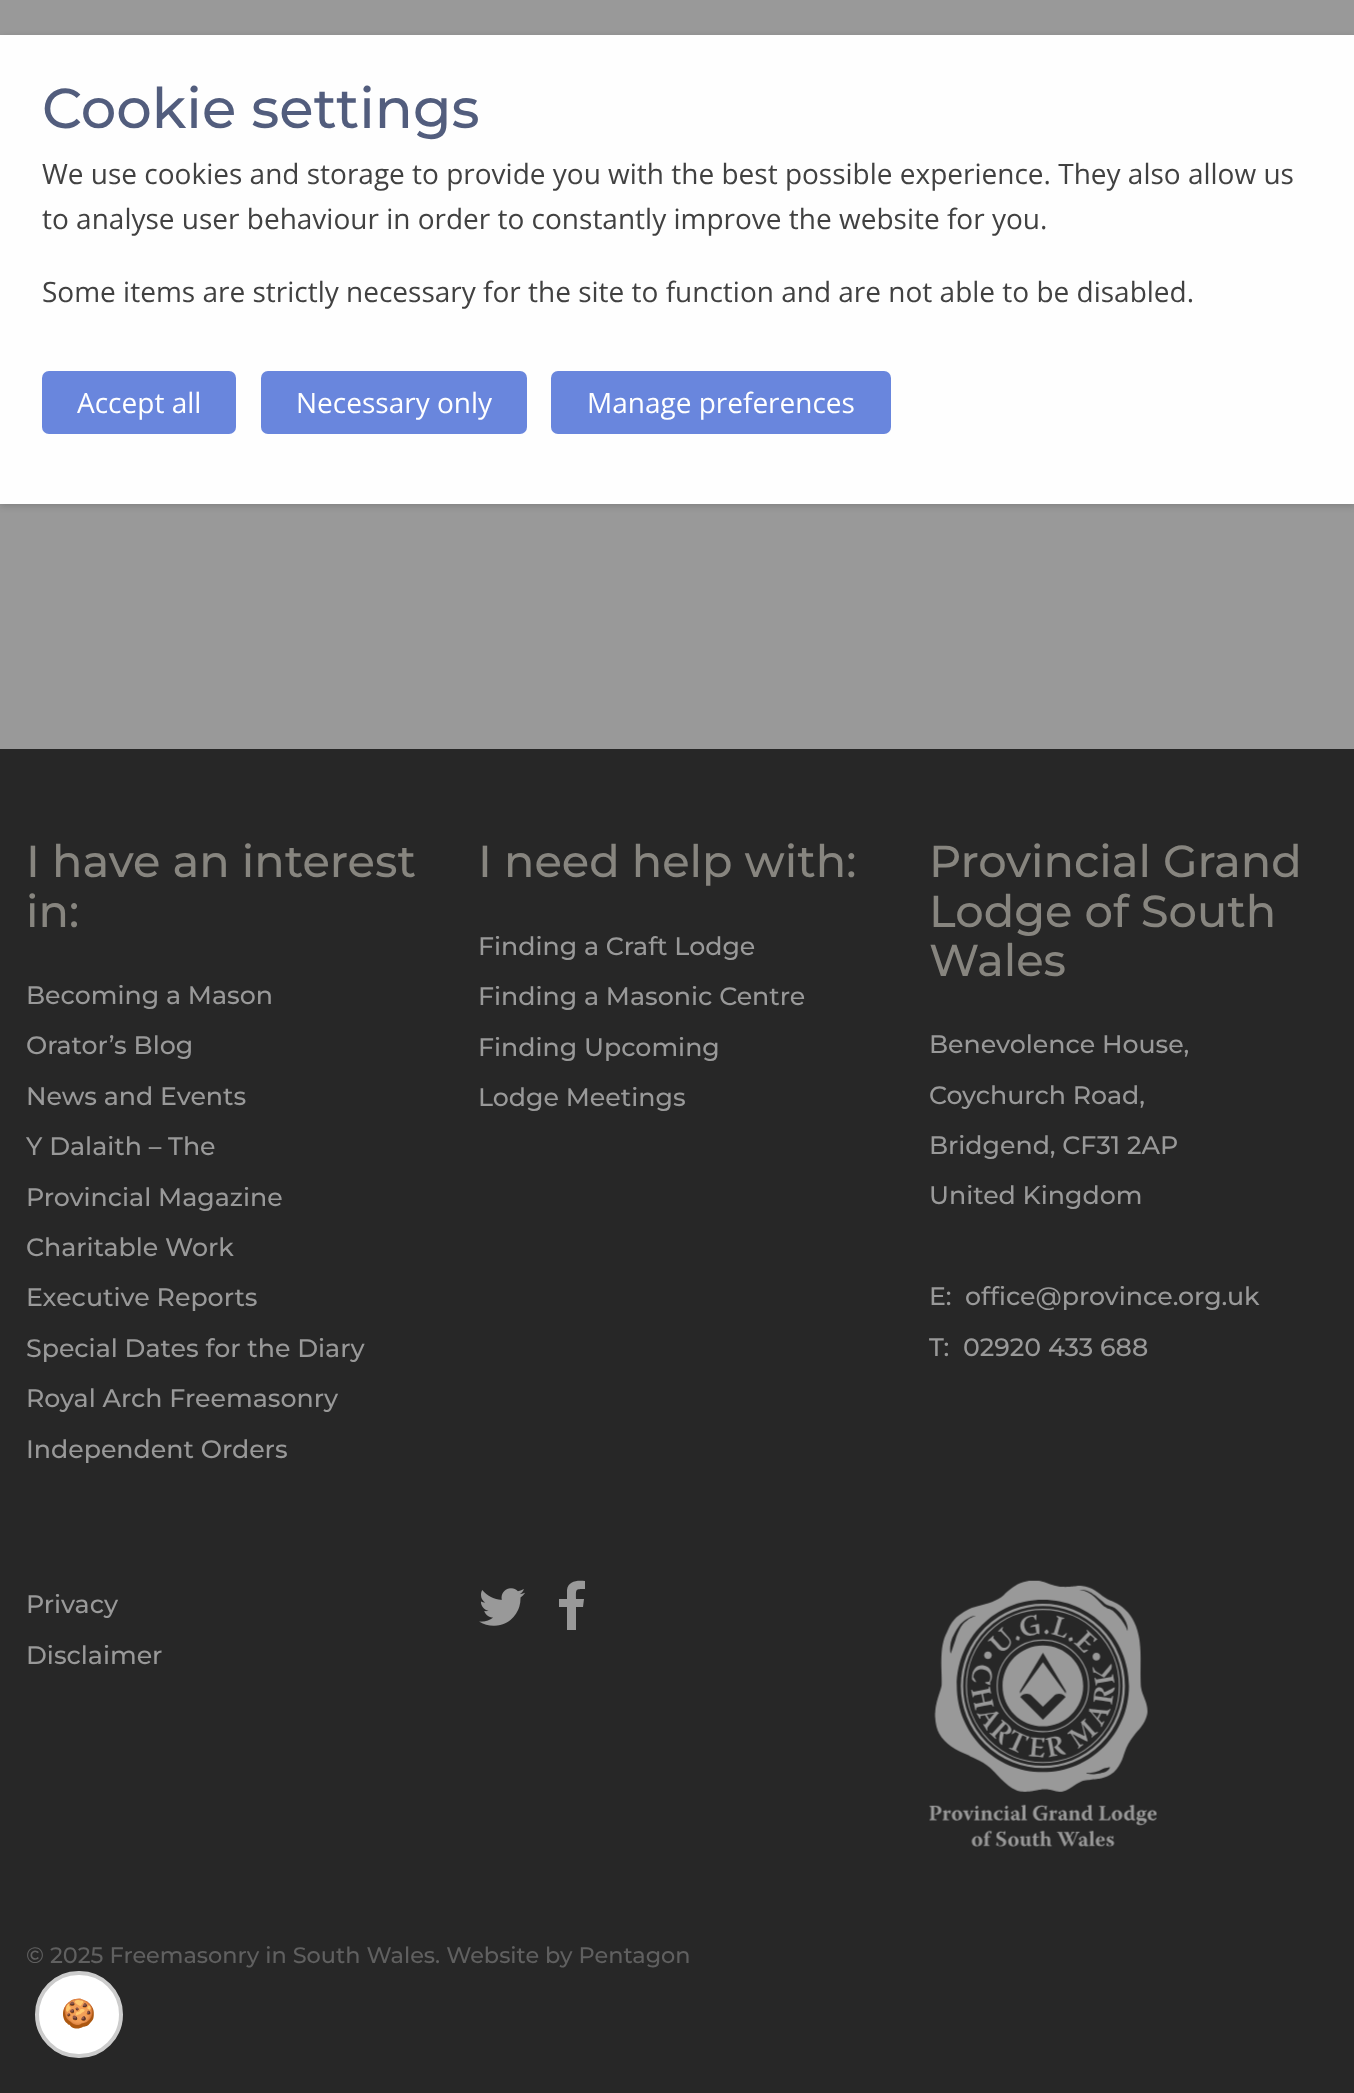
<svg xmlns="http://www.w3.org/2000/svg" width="1354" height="2093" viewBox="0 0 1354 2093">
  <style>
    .t1 { font: 500 56px Montserrat; fill: #525d7d; }
    .t2 { font: 28px Open Sans; fill: #414141; }
    .t3 { font: 28px Open Sans; fill: #fff; }
    .t4 { font: 500 44.75px Montserrat; fill: #87857f; }
    .t5 { font: 500 25.25px Montserrat; fill: #999; }
    .t6 { font: 500 22.4px Montserrat; fill: #606060; }
    .t7 { font: 28px Noto Color Emoji; fill: #000; }
  </style>
  <rect width="100%" height="100%" fill="#999"/>
  <rect x="0" y="37" width="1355" height="469" fill="#00000029" filter="blur(3.5px)"/>
  <rect x="0" y="35" width="1354" height="469" fill="#fefefe"/>
  <text x="42" y="128" class="t1">Cookie settings</text>
  <text x="42" y="184" class="t2">We use cookies and storage to provide you with the best possible experience. They also allow us</text>
  <text x="42" y="229" class="t2">to analyse user behaviour in order to constantly improve the website for you.</text>
  <text x="42" y="302" class="t2">Some items are strictly necessary for the site to function and are not able to be disabled.</text>
  <rect x="42" y="371" width="194" height="63" rx="7" fill="#6986dd"/>
  <text x="77" y="413" class="t3">Accept all</text>
  <rect x="261" y="371" width="266" height="63" rx="7" fill="#6986dd"/>
  <text x="296" y="413" class="t3">Necessary only</text>
  <rect x="551" y="371" width="340" height="63" rx="7" fill="#6986dd"/>
  <text x="587" y="413" class="t3">Manage preferences</text>
  <rect x="0" y="749" width="1354" height="1344" fill="#272727"/>
  <text x="26" y="877" class="t4">I have an interest</text>
  <text x="26" y="927" class="t4">in:</text>
  <text x="26" y="1004" class="t5">Becoming a Mason</text>
  <text x="26" y="1054" class="t5">Orator’s Blog</text>
  <text x="26" y="1105" class="t5">News and Events</text>
  <text x="26" y="1155" class="t5">Y Dalaith – The</text>
  <text x="26" y="1206" class="t5">Provincial Magazine</text>
  <text x="26" y="1256" class="t5">Charitable Work</text>
  <text x="26" y="1306" class="t5">Executive Reports</text>
  <text x="26" y="1357" class="t5">Special Dates for the Diary</text>
  <text x="26" y="1407" class="t5">Royal Arch Freemasonry</text>
  <text x="26" y="1458" class="t5">Independent Orders</text>
  <text x="478" y="877" class="t4">I need help with:</text>
  <text x="478" y="955" class="t5">Finding a Craft Lodge</text>
  <text x="478" y="1005" class="t5">Finding a Masonic Centre</text>
  <text x="478" y="1056" class="t5">Finding Upcoming</text>
  <text x="478" y="1106" class="t5">Lodge Meetings</text>
  <text x="929" y="877" class="t4">Provincial Grand</text>
  <text x="929" y="927" class="t4">Lodge of South</text>
  <text x="929" y="976" class="t4">Wales</text>
  <text x="929" y="1053" class="t5">Benevolence House,</text>
  <text x="929" y="1104" class="t5">Coychurch Road,</text>
  <text x="929" y="1154" class="t5">Bridgend, CF31 2AP</text>
  <text x="929" y="1204" class="t5">United Kingdom</text>
  <text x="929" y="1305" class="t5">E:</text>
  <text x="965" y="1305" class="t5">office@province.org.uk</text>
  <text x="929" y="1356" class="t5" xml:space="preserve">T:  02920 433 688</text>
  <text x="26" y="1613" class="t5">Privacy</text>
  <text x="26" y="1664" class="t5">Disclaimer</text>
  <image x="479" y="1588" width="46" height="38" href="images/1.png"/>
  <path d="M585 1581V1589C575 1589 576 1589 576 1599H584L583 1607H576V1630H567V1607H559V1599H567V1590C568 1581 577 1580 585 1581Z" fill="#999"/>
  <image x="929" y="1580" width="228" height="267" href="images/2.png"/>
  <text x="26" y="1963" class="t6">© 2025 Freemasonry in South Wales. Website by Pentagon</text>
  <rect x="37" y="1973" width="84" height="83" rx="41.5" fill="#fff" stroke="#ccc" stroke-width="4"/>
  <text x="61" y="2023" class="t7">🍪</text>
</svg>
